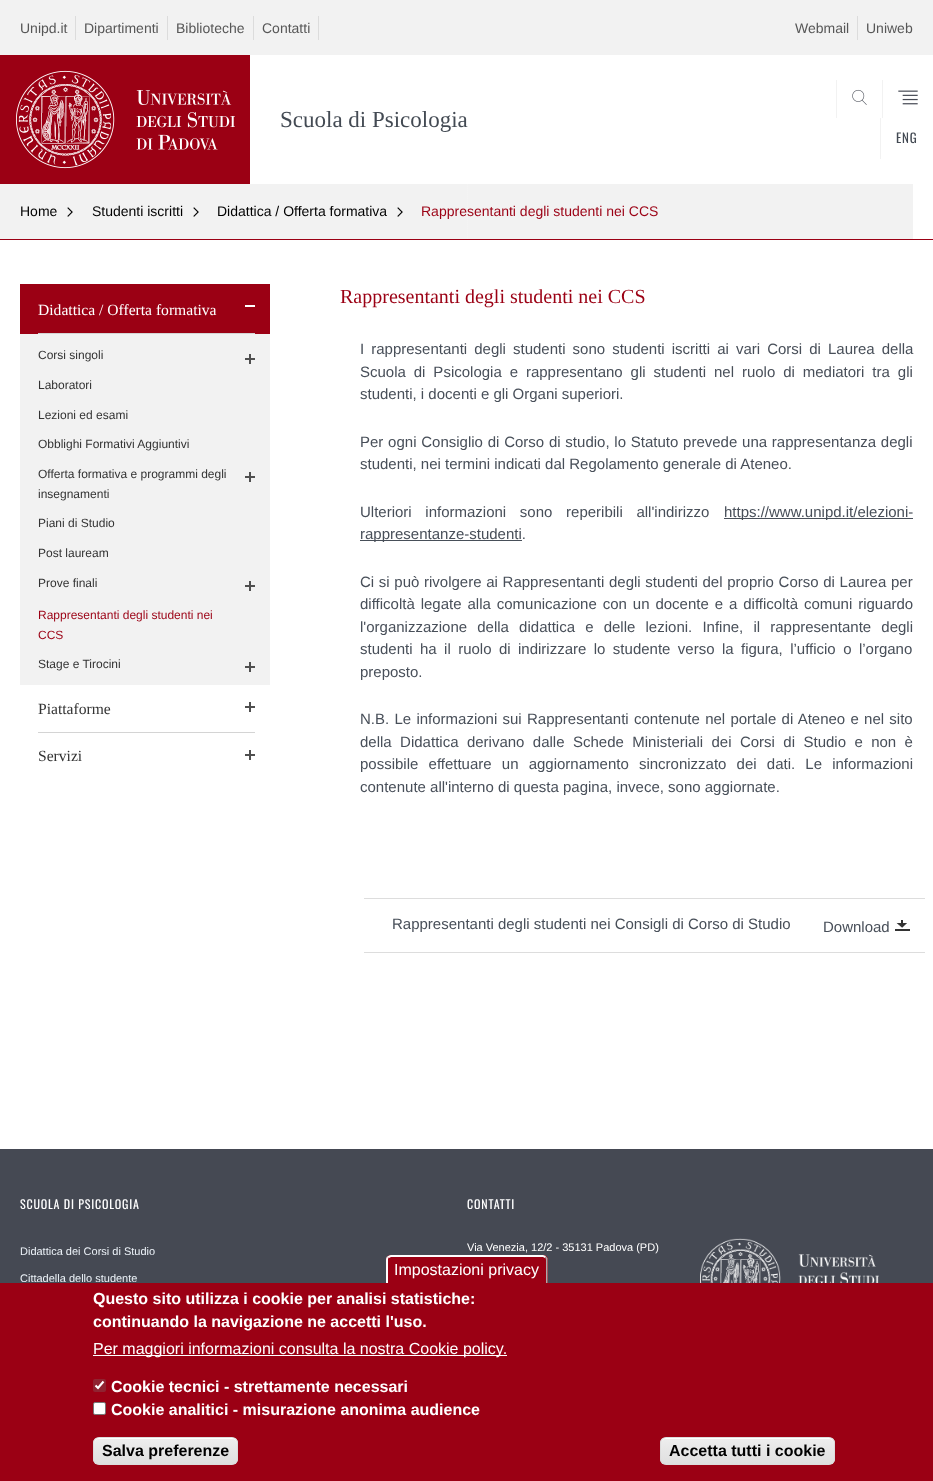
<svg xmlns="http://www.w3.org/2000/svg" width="933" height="1481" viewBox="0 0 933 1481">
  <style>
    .t1 { font: 14px Liberation Sans; fill: #575757; }
    .t2 { font: 23px Liberation Serif; fill: #434a53; }
    .t3 { font: 13px Oswald; letter-spacing: 0.8px; fill: #434a53; }
    .t4 { font: 14px Liberation Sans; fill: #000; }
    .t5 { font: 14px Liberation Sans; fill: #9b0014; }
    .t6 { font: 15.6px Liberation Serif; fill: #fff; }
    .t7 { font: 12px Liberation Sans; fill: #333; }
    .t8 { font: 12px Liberation Sans; fill: #9b0014; }
    .t9 { font: 15.6px Liberation Serif; fill: #333; }
    .t10 { font: 20px Liberation Serif; fill: #9b0014; }
    .t11 { font: 15px Liberation Sans; fill: #484f59; }
    .t12 { font: 12px Oswald; letter-spacing: 0.8px; fill: #fff; }
    .t13 { font: 11px Liberation Sans; fill: #ecf2f8; }
    .t14 { font: 11px Liberation Sans; fill: #fff; }
    .t15 { font: 16px Liberation Sans; fill: #fff; }
    .t16 { font: bold 16px Liberation Sans; fill: #fff; }
    .t17 { font: bold 16px Liberation Sans; fill: #000; }
  </style>
  <defs>
    <linearGradient id="g1" gradientUnits="userSpaceOnUse" x1="0" y1="212" x2="933" y2="211"><stop offset="0" stop-color="#f2f2f2"/><stop offset="0.5" stop-color="#f2f2f2"/><stop offset="0.51" stop-color="#fff"/><stop offset="1" stop-color="#fff"/></linearGradient>
    <clipPath id="clip1"><rect x="93" y="1437" width="145" height="28" rx="6"/></clipPath>
    <linearGradient id="g2" gradientUnits="userSpaceOnUse" x1="166" y1="1438" x2="166" y2="1464"><stop offset="0.05" stop-color="#ededed"/><stop offset="1" stop-color="#dfdfdf"/></linearGradient>
    <clipPath id="clip2"><rect x="660" y="1437" width="175" height="28" rx="6"/></clipPath>
    <linearGradient id="g3" gradientUnits="userSpaceOnUse" x1="748" y1="1438" x2="748" y2="1464"><stop offset="0.05" stop-color="#ededed"/><stop offset="1" stop-color="#dfdfdf"/></linearGradient>
  </defs>
  <rect width="100%" height="100%" fill="#fff"/>
  <rect x="0" y="0" width="933" height="55" fill="#f2f2f2"/>
  <rect x="75" y="16" width="1" height="24" fill="#dcdcdc"/>
  <text x="20" y="33" class="t1">Unipd.it</text>
  <rect x="167" y="16" width="1" height="24" fill="#dcdcdc"/>
  <text x="84" y="33" class="t1">Dipartimenti</text>
  <rect x="253" y="16" width="1" height="24" fill="#dcdcdc"/>
  <text x="176" y="33" class="t1">Biblioteche</text>
  <rect x="318" y="16" width="1" height="24" fill="#dcdcdc"/>
  <text x="262" y="33" class="t1">Contatti</text>
  <rect x="857" y="16" width="1" height="24" fill="#dcdcdc"/>
  <text x="795" y="33" class="t1">Webmail</text>
  <text x="866" y="33" class="t1">Uniweb</text>
  <rect x="0" y="55" width="250" height="129" fill="#9b0014"/>
  <image x="16" y="70" width="219" height="99" href="images/1.png"/>
  <text x="280" y="127" class="t2">Scuola di Psicologia</text>
  <rect x="836" y="80" width="1" height="38" fill="#f2f2f2"/>
  <image x="852" y="89" width="15" height="16" href="images/2.png"/>
  <rect x="882" y="80" width="1" height="38" fill="#f2f2f2"/>
  <image x="898" y="90" width="20" height="15" href="images/3.png"/>
  <rect x="880" y="118" width="1" height="41" fill="#f2f2f2"/>
  <text x="896" y="143" class="t3">ENG</text>
  <rect x="0" y="184" width="474" height="55" fill="url(#g1)"/>
  <rect x="468" y="184" width="445" height="55" fill="#f2f2f2"/>
  <text x="20" y="216" class="t4">Home</text>
  <image x="67" y="207" width="6" height="10" href="images/4.png"/>
  <text x="92" y="216" class="t4">Studenti iscritti</text>
  <image x="193" y="207" width="6" height="10" href="images/4.png"/>
  <text x="217" y="216" class="t4">Didattica / Offerta formativa</text>
  <image x="397" y="207" width="6" height="10" href="images/4.png"/>
  <text x="421" y="216" class="t5">Rappresentanti degli studenti nei CCS</text>
  <rect x="0" y="239" width="933" height="1" fill="#9b0014"/>
  <rect x="20" y="284" width="250" height="50" fill="#9b0014"/>
  <rect x="38" y="333" width="217" height="1" fill="#d4d4d4"/>
  <text x="38" y="315" class="t6">Didattica / Offerta formativa</text>
  <rect x="245" y="305" width="10" height="2" fill="#fff"/>
  <rect x="20" y="334" width="250" height="351" fill="#f2f2f2"/>
  <text x="38" y="359" class="t7">Corsi singoli</text>
  <image x="245" y="354" width="10" height="10" href="images/5.png"/>
  <text x="38" y="389" class="t7">Laboratori</text>
  <text x="38" y="419" class="t7">Lezioni ed esami</text>
  <text x="38" y="448" class="t7">Obblighi Formativi Aggiuntivi</text>
  <text x="38" y="478" class="t7">Offerta formativa e programmi degli</text>
  <text x="38" y="498" class="t7">insegnamenti</text>
  <image x="245" y="472" width="10" height="10" href="images/5.png"/>
  <text x="38" y="527" class="t7">Piani di Studio</text>
  <text x="38" y="557" class="t7">Post lauream</text>
  <text x="38" y="587" class="t7">Prove finali</text>
  <image x="245" y="581" width="10" height="10" href="images/5.png"/>
  <text x="38" y="619" class="t8">Rappresentanti degli studenti nei</text>
  <text x="38" y="639" class="t8">CCS</text>
  <text x="38" y="668" class="t7">Stage e Tirocini</text>
  <image x="245" y="662" width="10" height="10" href="images/5.png"/>
  <rect x="38" y="732" width="217" height="1" fill="#d4d4d4"/>
  <text x="38" y="714" class="t9">Piattaforme</text>
  <image x="245" y="702" width="10" height="10" href="images/6.png"/>
  <text x="38" y="761" class="t9">Servizi</text>
  <image x="245" y="750" width="10" height="10" href="images/6.png"/>
  <text x="340" y="303" class="t10">Rappresentanti degli studenti nei CCS</text>
  <text x="360" y="354" word-spacing="2.9" class="t11">I rappresentanti degli studenti sono studenti iscritti ai vari Corsi di Laurea della</text>
  <text x="360" y="377" word-spacing="3.75" class="t11">Scuola di Psicologia e rappresentano gli studenti nel ruolo di mediatori tra gli</text>
  <text x="360" y="399" class="t11">studenti, i docenti e gli Organi superiori.</text>
  <text x="360" y="447" word-spacing="0.6" class="t11">Per ogni Consiglio di Corso di studio, lo Statuto prevede una rappresentanza degli</text>
  <text x="360" y="469" class="t11">studenti, nei termini indicati dal Regolamento generale di Ateneo.</text>
  <text x="360" y="517" word-spacing="9.5" class="t11">Ulteriori informazioni sono reperibili all'indirizzo</text>
  <rect x="724" y="518" width="189" height="1" fill="#484f59"/>
  <text x="724" y="517" class="t11">https://www.unipd.it/elezioni-</text>
  <rect x="360" y="540" width="162" height="1" fill="#484f59"/>
  <text x="360" y="539" class="t11">rappresentanze-studenti.</text>
  <text x="360" y="587" word-spacing="0.5" class="t11">Ci si può rivolgere ai Rappresentanti degli studenti del proprio Corso di Laurea per</text>
  <text x="360" y="609" word-spacing="1.75" class="t11">difficoltà legate alla comunicazione con un docente e a difficoltà comuni riguardo</text>
  <text x="360" y="632" word-spacing="6" class="t11">l'organizzazione della didattica e delle lezioni. Infine, il rappresentante degli</text>
  <text x="360" y="654" word-spacing="3.25" class="t11">studenti ha il ruolo di indirizzare lo studente verso la figura, l’ufficio o l’organo</text>
  <text x="360" y="677" class="t11">preposto.</text>
  <text x="360" y="724" word-spacing="1.1" class="t11">N.B. Le informazioni sui Rappresentanti contenute nel portale di Ateneo e nel sito</text>
  <text x="360" y="747" word-spacing="4.25" class="t11">della Didattica derivano dalle Schede Ministeriali dei Corsi di Studio e non è</text>
  <text x="360" y="769" word-spacing="6" class="t11">possibile effettuare un aggiornamento sincronizzato dei dati. Le informazioni</text>
  <text x="360" y="792" class="t11">contenute all'interno di questa pagina, invece, sono aggiornate.</text>
  <rect x="364" y="898" width="561" height="1" fill="#ddd"/>
  <rect x="364" y="952" width="561" height="1" fill="#ddd"/>
  <text x="392" y="929" class="t11">Rappresentanti degli studenti nei Consigli di Corso di Studio</text>
  <image x="895" y="920" width="15" height="11" href="images/7.png"/>
  <text x="823" y="932" class="t11">Download</text>
  <rect x="0" y="1149" width="933" height="134" fill="#454953"/>
  <text x="20" y="1209" class="t12">SCUOLA DI PSICOLOGIA</text>
  <text x="20" y="1255" class="t13">Didattica dei Corsi di Studio</text>
  <text x="20" y="1282" class="t13">Cittadella dello studente</text>
  <text x="467" y="1209" class="t12">CONTATTI</text>
  <text x="467" y="1251" class="t14">Via Venezia, 12/2 - 35131 Padova (PD)</text>
  <image x="700" y="1238" width="179" height="45" href="images/8.png"/>
  <rect x="0" y="1283" width="933" height="198" fill="#9b0014"/>
  <path d="M391 1255H543C546 1255 548 1257 548 1260V1283H386V1260C386 1257 388 1255 391 1255Z" fill="#9b0014"/>
  <path d="M391 1255H543L546 1256L545 1258L543 1257H391L389 1258L387 1257C388 1256 389 1255 391 1255Z" fill="#fff"/>
  <path d="M545 1257.5L546 1256.5L547.5 1258V1283H546V1260C546 1259 545.5 1258 545 1257.5Z" fill="#aaa"/>
  <path d="M386 1283H388V1260C388 1259 388 1258.5 388.5 1258L387 1256.5C386.5 1257.5 386 1258.5 386 1260Z" fill="#fff"/>
  <text x="394" y="1275" class="t15">Impostazioni privacy</text>
  <text x="93" y="1304" class="t16">Questo sito utilizza i cookie per analisi statistiche:</text>
  <text x="93" y="1327" class="t16">continuando la navigazione ne accetti l'uso.</text>
  <rect x="93" y="1355" width="414" height="1" fill="#fff"/>
  <text x="93" y="1354" class="t15">Per maggiori informazioni consulta la nostra Cookie policy.</text>
  <rect x="93" y="1379" width="13" height="13" rx="2" fill="#902331"/>
  <path d="M95.5 1385.5L98 1388L103.5 1381.5" fill="none" stroke="#fff" stroke-width="2.1"/>
  <text x="111" y="1392" class="t16">Cookie tecnici - strettamente necessari</text>
  <rect x="93.5" y="1402.5" width="12" height="12" rx="1.5" fill="#fff" stroke="#767676"/>
  <text x="111" y="1415" class="t16">Cookie analitici - misurazione anonima audience</text>
  <g clip-path="url(#clip1)">
    <rect x="93" y="1438" width="145" height="26" fill="url(#g2)"/>
  </g>
  <path d="M99 1439H232C235 1439 237 1441 237 1444V1443C237 1440 235 1438 232 1438H99C96 1438 94 1440 94 1443V1444C94 1441 96 1439 99 1439Z" fill="#fff"/>
  <rect x="93.5" y="1437.5" width="144" height="27" rx="5.5" fill="none" stroke="#dcdcdc"/>
  <text x="102" y="1456" class="t17">Salva preferenze</text>
  <g clip-path="url(#clip2)">
    <rect x="660" y="1438" width="175" height="26" fill="url(#g3)"/>
  </g>
  <path d="M666 1439H829C832 1439 834 1441 834 1444C834 1441 833 1439 830 1438H666C663 1438 661 1441 661 1444C661 1441 663 1439 666 1439Z" fill="#fff"/>
  <rect x="660.5" y="1437.5" width="174" height="27" rx="5.5" fill="none" stroke="#dcdcdc"/>
  <text x="669" y="1456" class="t17">Accetta tutti i cookie</text>
</svg>
